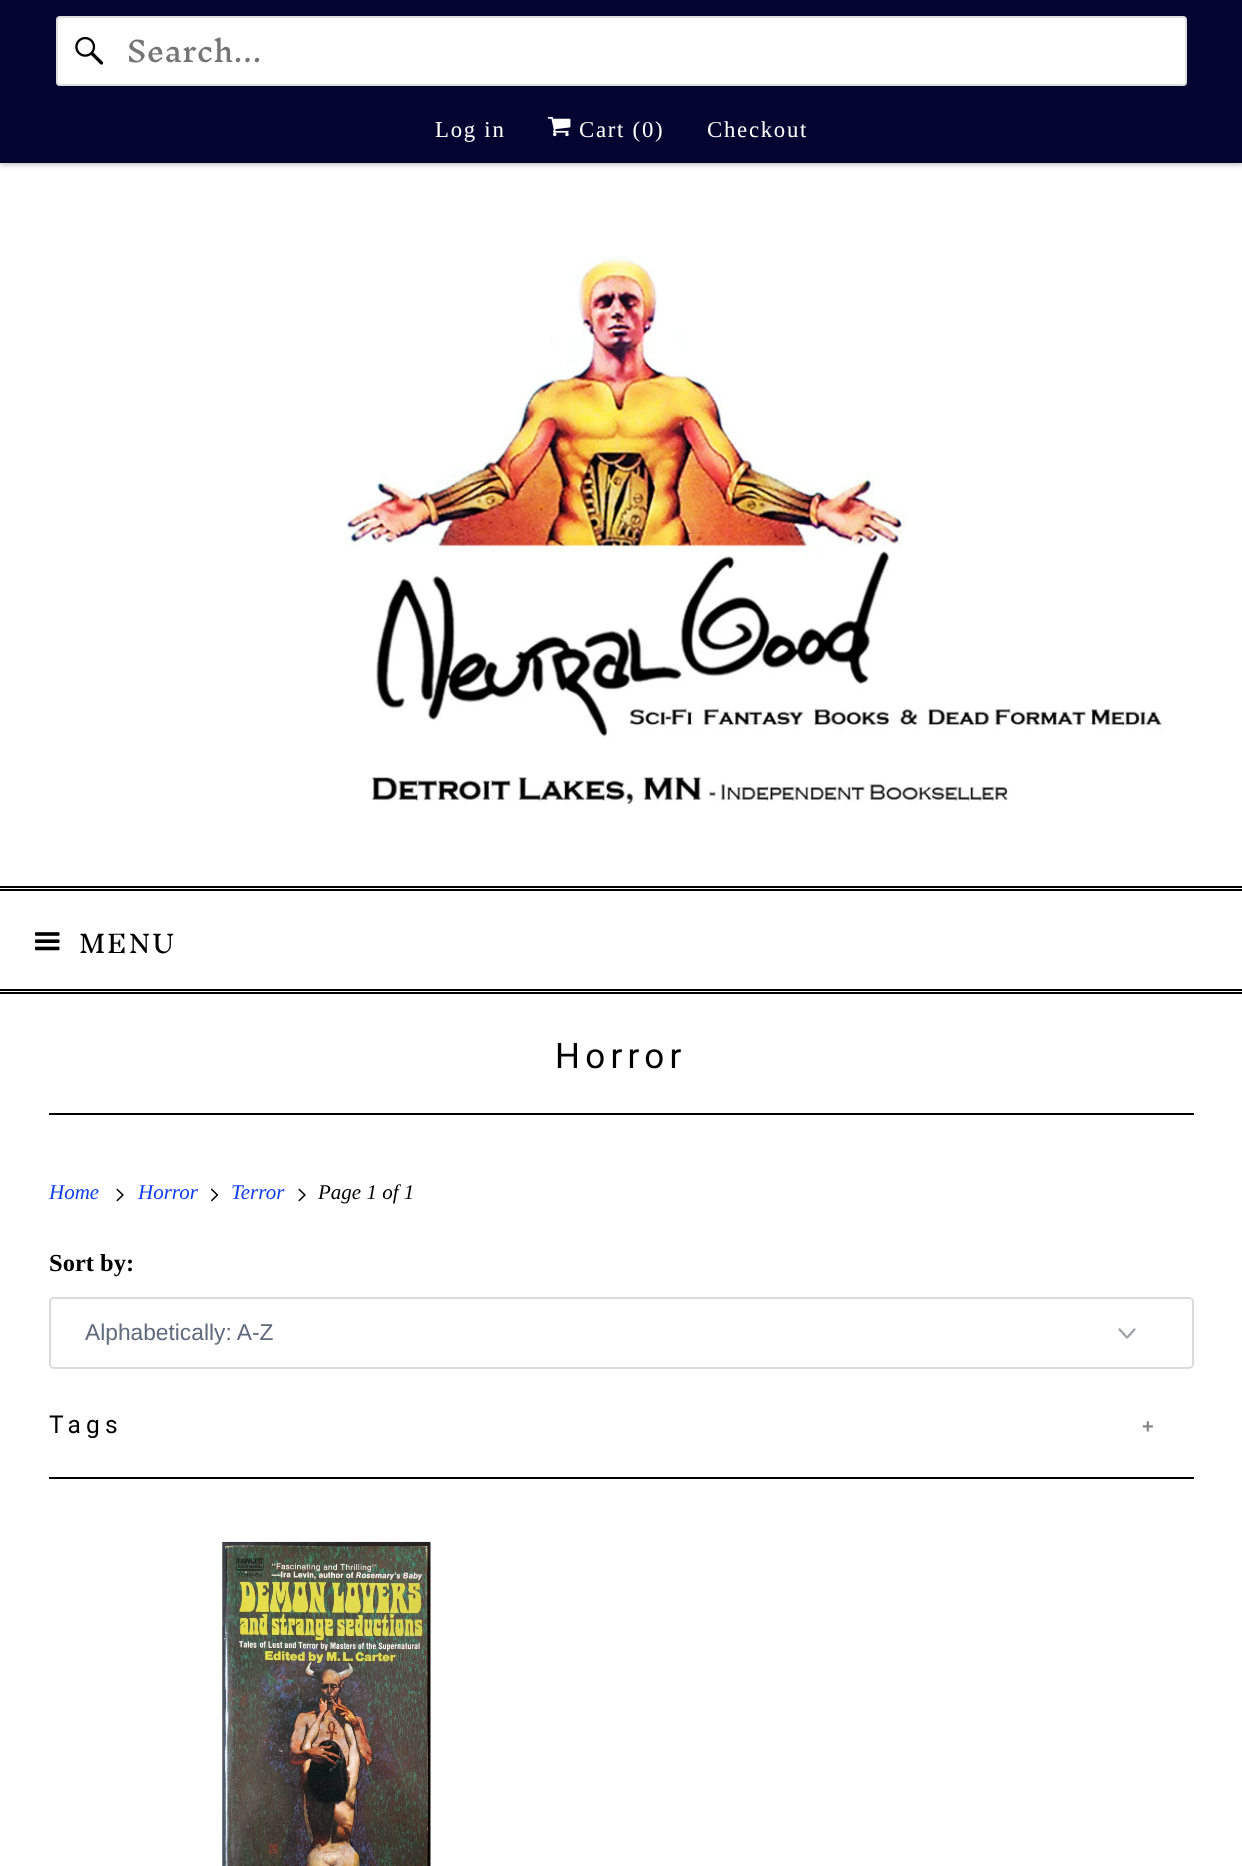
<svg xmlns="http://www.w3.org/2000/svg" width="1242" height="1866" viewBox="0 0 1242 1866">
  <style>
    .t1 { font: 28px Inknut Antiqua; fill: #757575; }
    .t2 { font: 22.75px Liberation Serif; letter-spacing: 1.75px; fill: #fff; }
    .t3 { font: 24.5px Inknut Antiqua; letter-spacing: 1.75px; fill: #010000; }
    .t4 { font: 35px Roboto; letter-spacing: 5.25px; fill: #010000; }
    .t5 { font: italic 21px Liberation Serif; fill: #0e3df3; }
    .t6 { font: italic 21px Liberation Serif; fill: #010000; }
    .t7 { font: bold 24.5px Liberation Serif; fill: #010000; }
    .t8 { font: 22.75px Liberation Sans; fill: #5f6a7d; }
    .t9 { font: 24.5px Roboto; letter-spacing: 5.25px; fill: #010000; }
    .t10 { font: bold 20px Liberation Sans; letter-spacing: 5.25px; fill: #888; }
  </style>
  <rect width="100%" height="100%" fill="#fff"/>
  <rect x="0" y="2" width="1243" height="163" fill="#00000040" filter="blur(2.5px)"/>
  <rect x="0" y="0" width="1242" height="161" fill="#030530"/>
  <rect x="0" y="161" width="1242" height="2" fill="#03052b"/>
  <rect x="57" y="17" width="1129" height="68" rx="3" fill="#fff" stroke="#dfdfdf" stroke-width="2"/>
  <image x="75" y="36" width="29" height="29" href="images/1.png"/>
  <text x="127" y="62" class="t1">Search...</text>
  <text x="435" y="137" class="t2">Log in</text>
  <image x="547" y="116" width="24" height="21" href="images/2.png"/>
  <text x="579" y="137" class="t2">Cart (0)</text>
  <text x="707" y="137" class="t2">Checkout</text>
  <image x="345" y="256" width="820" height="549" href="images/3.png"/>
  <rect x="0" y="886" width="1242" height="2" fill="#010000"/>
  <rect x="0" y="889" width="1242" height="2" fill="#010000"/>
  <rect x="0" y="989" width="1242" height="2" fill="#010000"/>
  <rect x="0" y="992" width="1242" height="2" fill="#010000"/>
  <image x="35" y="932" width="25" height="19" href="images/4.png"/>
  <text x="79" y="953" class="t3">MENU</text>
  <rect x="49" y="1113" width="1145" height="2" fill="#010000"/>
  <text x="555" y="1068" class="t4">Horror</text>
  <text x="49" y="1199" class="t5">Home</text>
  <image x="116" y="1188" width="8" height="14" href="images/5.png"/>
  <text x="138" y="1199" class="t5">Horror</text>
  <image x="210" y="1188" width="9" height="14" href="images/6.png"/>
  <text x="231" y="1199" class="t5">Terror</text>
  <image x="298" y="1188" width="8" height="14" href="images/5.png"/>
  <text x="318" y="1199" class="t6">Page 1 of 1</text>
  <text x="49" y="1271" class="t7">Sort by:</text>
  <image x="1118" y="1328" width="18" height="11" href="images/7.png"/>
  <rect x="50" y="1298" width="1143" height="70" rx="4" fill="none" stroke="#d9dbdc" stroke-width="2"/>
  <text x="85" y="1340" class="t8">Alphabetically: A-Z</text>
  <rect x="49" y="1477" width="1145" height="2" fill="#010000"/>
  <text x="49" y="1433" class="t9">Tags</text>
  <text x="1142" y="1433" class="t10">+</text>
  <image x="222" y="1541" width="209" height="325" href="images/8.png"/>
</svg>
